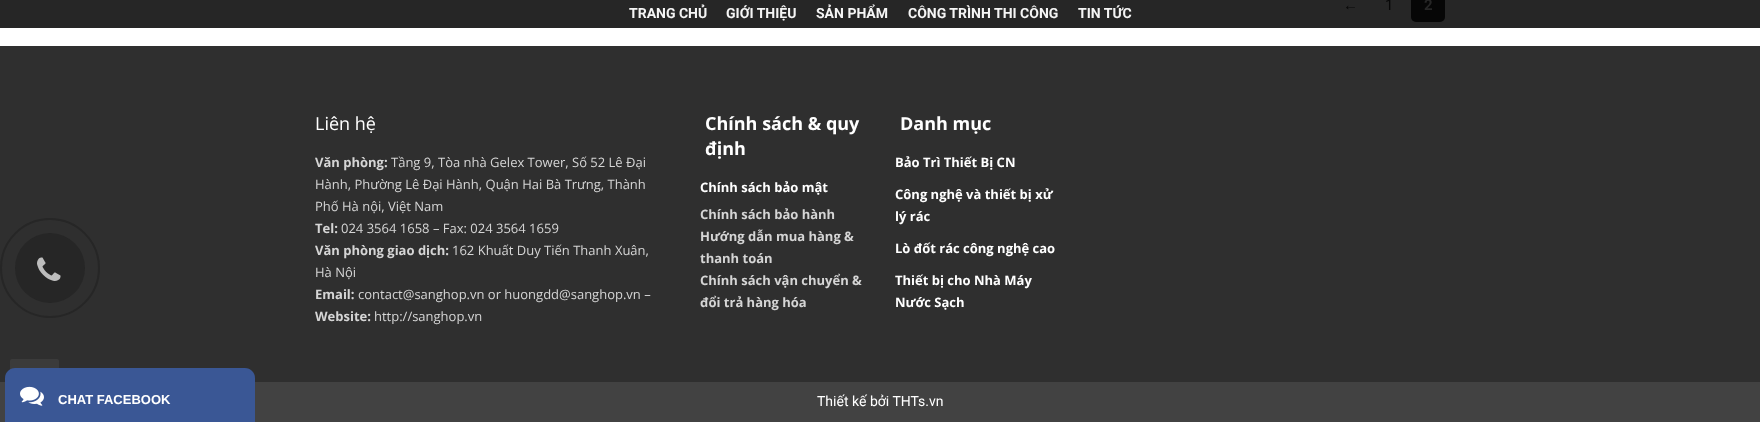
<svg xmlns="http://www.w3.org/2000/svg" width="1760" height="422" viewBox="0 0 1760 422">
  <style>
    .t1 { font: bold 14px Roboto; fill: #f5f5f5; }
    .t2 { font: 15px Liberation Sans; fill: #080808; }
    .t3 { font: 15px Roboto; fill: #080808; }
    .t4 { font: bold 15px Roboto; fill: #262626; }
    .t5 { font: 18px Open Sans; fill: #fff; }
    .t6 { font: bold 13px Open Sans; fill: #d5d5d5; }
    .t7 { font: 13px Open Sans; fill: #d5d5d5; }
    .t8 { font: bold 18px Open Sans; fill: #fff; }
    .t9 { font: bold 13px Open Sans; fill: #fff; }
    .t10 { font: bold 13px Liberation Sans; fill: #fff; }
    .t11 { font: 14px Roboto; fill: #fff; }
  </style>
  <rect width="100%" height="100%" fill="#fff"/>
  <rect x="0" y="0" width="1760" height="28" fill="#262626"/>
  <rect x="0" y="46" width="1760" height="336" fill="#2f2f2f"/>
  <circle cx="50" cy="268" r="49" fill="none" stroke="#262626" stroke-width="2"/>
  <circle cx="50" cy="268" r="35" fill="#262626"/>
  <image x="37" y="257" width="24" height="24" href="images/1.png"/>
  <text x="629" y="18" class="t1">TRANG CHỦ</text>
  <text x="726" y="18" class="t1">GIỚI THIỆU</text>
  <text x="816" y="18" class="t1">SẢN PHẨM</text>
  <text x="908" y="18" class="t1">CÔNG TRÌNH THI CÔNG</text>
  <text x="1078" y="18" class="t1">TIN TỨC</text>
  <text x="1343" y="10" class="t2">←</text>
  <text x="1385" y="10" class="t3">1</text>
  <rect x="1411" y="-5" width="34" height="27" rx="5" fill="#060606"/>
  <text x="1424" y="10" class="t4">2</text>
  <text x="315" y="130" class="t5">Liên hệ</text>
  <text x="315" y="167" class="t6">Văn phòng:</text>
  <text x="391" y="167" class="t7">Tầng 9, Tòa nhà Gelex Tower, Số 52 Lê Đại</text>
  <text x="315" y="189" class="t7">Hành, Phường Lê Đại Hành, Quận Hai Bà Trưng, Thành</text>
  <text x="315" y="211" class="t7">Phố Hà nội, Việt Nam</text>
  <text x="315" y="233" class="t6">Tel:</text>
  <text x="341" y="233" class="t7">024 3564 1658 – Fax: 024 3564 1659</text>
  <text x="315" y="255" class="t6">Văn phòng giao dịch:</text>
  <text x="452" y="255" class="t7">162 Khuất Duy Tiến Thanh Xuân,</text>
  <text x="315" y="277" class="t7">Hà Nội</text>
  <text x="315" y="299" class="t6">Email:</text>
  <text x="358" y="299" class="t7">contact@sanghop.vn or huongdd@sanghop.vn –</text>
  <text x="315" y="321" class="t6">Website:</text>
  <text x="374" y="321" class="t7">http://sanghop.vn</text>
  <text x="705" y="130" class="t8">Chính sách &amp; quy</text>
  <text x="705" y="155" class="t8">định</text>
  <text x="700" y="192" class="t9">Chính sách bảo mật</text>
  <text x="700" y="219" class="t6">Chính sách bảo hành</text>
  <text x="700" y="241" class="t6">Hướng dẫn mua hàng &amp;</text>
  <text x="700" y="263" class="t6">thanh toán</text>
  <text x="700" y="285" class="t6">Chính sách vận chuyển &amp;</text>
  <text x="700" y="307" class="t6">đổi trả hàng hóa</text>
  <text x="900" y="130" class="t8">Danh mục</text>
  <text x="895" y="167" class="t9">Bảo Trì Thiết Bị CN</text>
  <text x="895" y="199" class="t9">Công nghệ và thiết bị xử</text>
  <text x="895" y="221" class="t9">lý rác</text>
  <text x="895" y="253" class="t9">Lò đốt rác công nghệ cao</text>
  <text x="895" y="285" class="t9">Thiết bị cho Nhà Máy</text>
  <text x="895" y="307" class="t9">Nước Sạch</text>
  <rect x="0" y="382" width="1760" height="40" fill="#424242"/>
  <rect x="10" y="359" width="49" height="49" rx="2" fill="#404040b3"/>
  <path d="M15 368H245C250.5 368 255 372.5 255 378V422H5V378C5 372.5 9.5 368 15 368Z" fill="#3a5795"/>
  <image x="20" y="386" width="24" height="20" href="images/2.png"/>
  <text x="58" y="404" class="t10">CHAT FACEBOOK</text>
  <text x="817" y="406" class="t11">Thiết kế bởi THTs.vn</text>
</svg>
